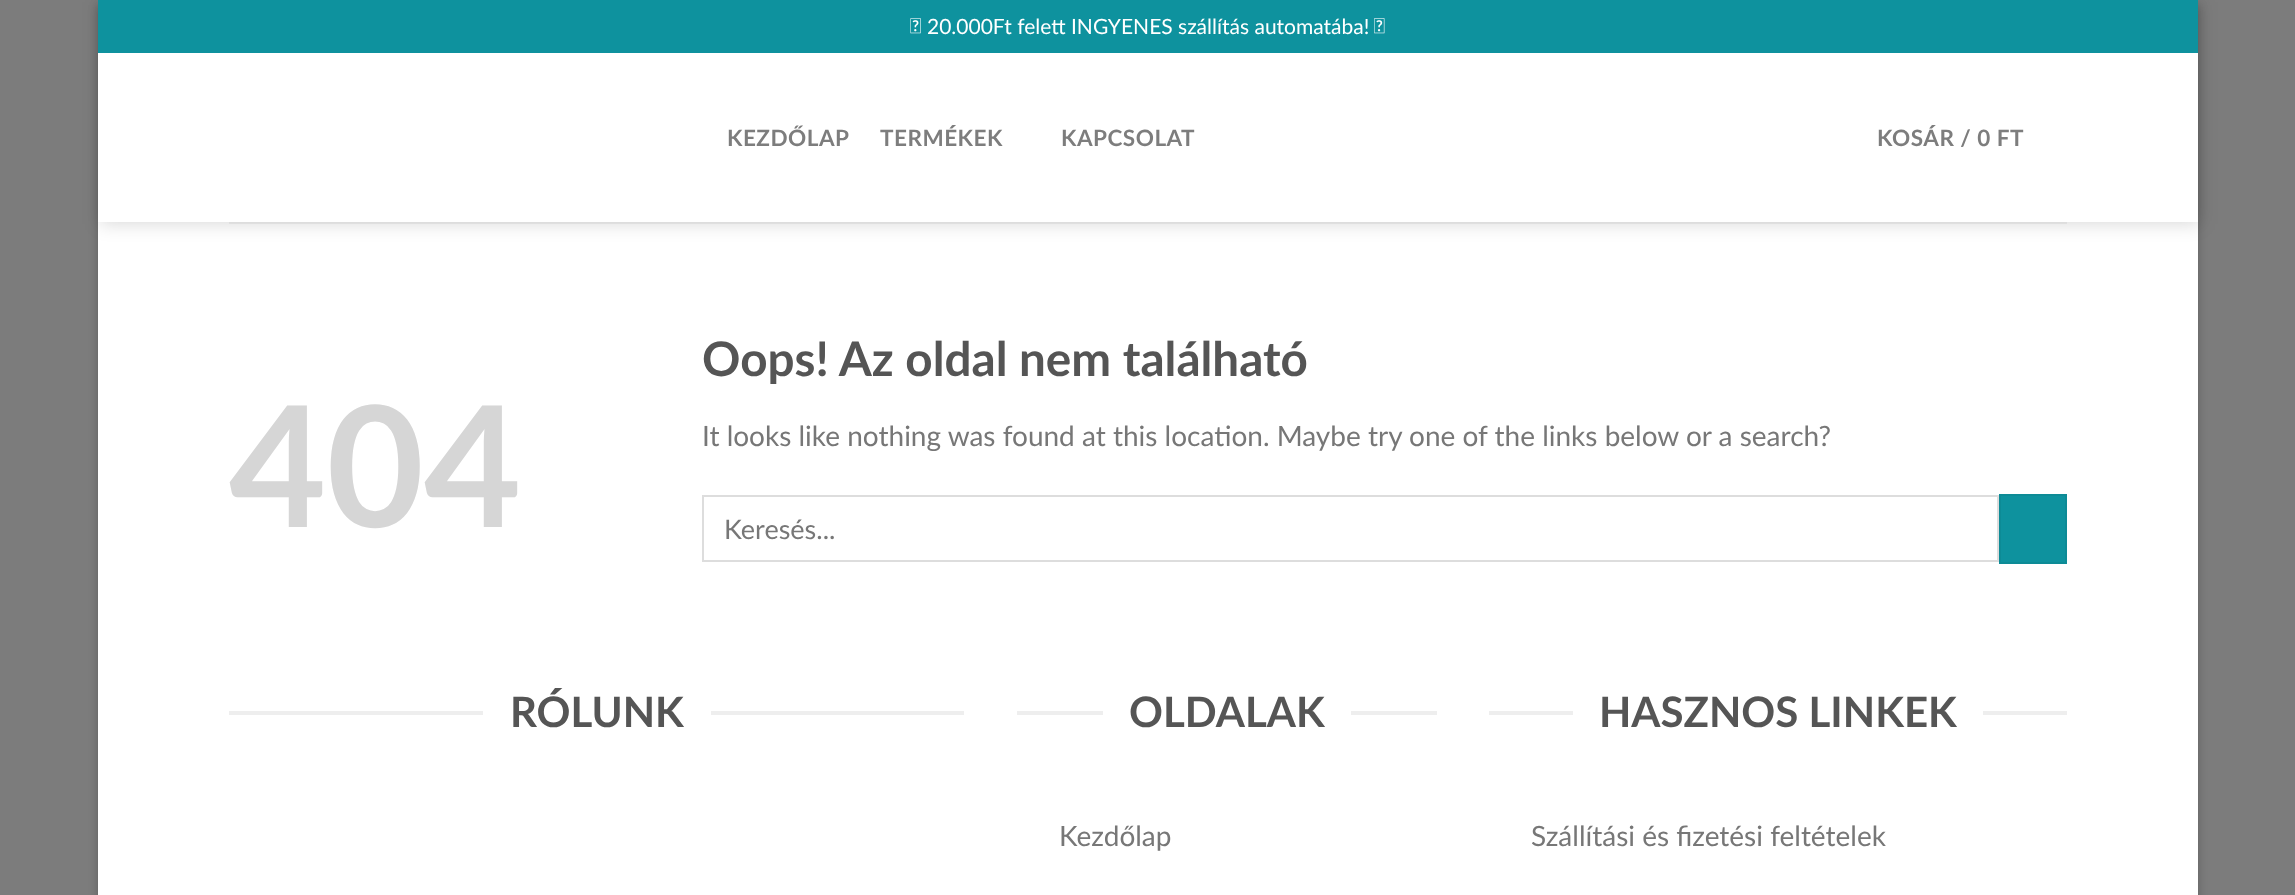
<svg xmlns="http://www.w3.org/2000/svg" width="2295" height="895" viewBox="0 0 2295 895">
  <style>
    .t1 { font: 21px Lato; fill: #fff; }
    .t2 { font: bold 22.5px Lato; letter-spacing: 0.5px; fill: #7d7d7d; }
    .t3 { font: bold 168px Lato; fill: #d6d6d6; }
    .t4 { font: bold 47.6px Lato; fill: #555; }
    .t5 { font: 28px Lato; fill: #777; }
    .t6 { font: 27px Lato; fill: #777; }
    .t7 { font: bold 42px Lato; fill: #555; }
  </style>
  <defs>
    <clipPath id="clip1"><path d="M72 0H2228V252H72ZM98 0H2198V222H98Z" clip-rule="evenodd"/></clipPath>
  </defs>
  <rect width="100%" height="100%" fill="#7c7c7c"/>
  <rect x="98" y="5" width="2100" height="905" fill="#0000003b" filter="blur(5px)"/>
  <rect x="98" y="53" width="2100" height="842" fill="#fff"/>
  <g clip-path="url(#clip1)">
    <rect x="100" y="2" width="2100" height="222" fill="#00000026" filter="blur(9px)"/>
  </g>
  <rect x="98" y="0" width="2100" height="53" fill="#0e929e"/>
  <image x="910" y="18" width="11" height="16" href="images/1.png"/>
  <text x="927" y="34" class="t1">20.000Ft felett INGYENES szállítás automatába!</text>
  <image x="1374" y="18" width="11" height="16" href="images/2.png"/>
  <text x="727" y="146" class="t2">KEZDŐLAP</text>
  <text x="880" y="146" class="t2">TERMÉKEK</text>
  <text x="1061" y="146" class="t2">KAPCSOLAT</text>
  <text x="1877" y="146" class="t2">KOSÁR / 0 FT</text>
  <rect x="229" y="222" width="1838" height="2" fill="#7777771a"/>
  <text x="229" y="527" class="t3">404</text>
  <text x="702" y="376" class="t4">Oops! Az oldal nem található</text>
  <text x="702" y="446" class="t5">It looks like nothing was found at this location. Maybe try one of the links below or a search?</text>
  <rect x="703" y="496" width="1295" height="65" fill="none" stroke="#ddd" stroke-width="2"/>
  <text x="724" y="539" class="t6">Keresés...</text>
  <rect x="2000" y="495" width="66" height="68" fill="#0e929e" stroke="#0d8b96" stroke-width="2"/>
  <rect x="229" y="711" width="254" height="4" fill="#eee"/>
  <text x="510" y="727" class="t7">RÓLUNK</text>
  <rect x="711" y="711" width="253" height="4" fill="#eee"/>
  <rect x="1017" y="711" width="86" height="4" fill="#eee"/>
  <text x="1129" y="727" class="t7">OLDALAK</text>
  <rect x="1351" y="711" width="86" height="4" fill="#eee"/>
  <text x="1059" y="846" class="t5">Kezdőlap</text>
  <rect x="1489" y="711" width="84" height="4" fill="#eee"/>
  <text x="1599" y="727" class="t7">HASZNOS LINKEK</text>
  <rect x="1983" y="711" width="84" height="4" fill="#eee"/>
  <text x="1531" y="846" class="t5">Szállítási és fizetési feltételek</text>
</svg>
